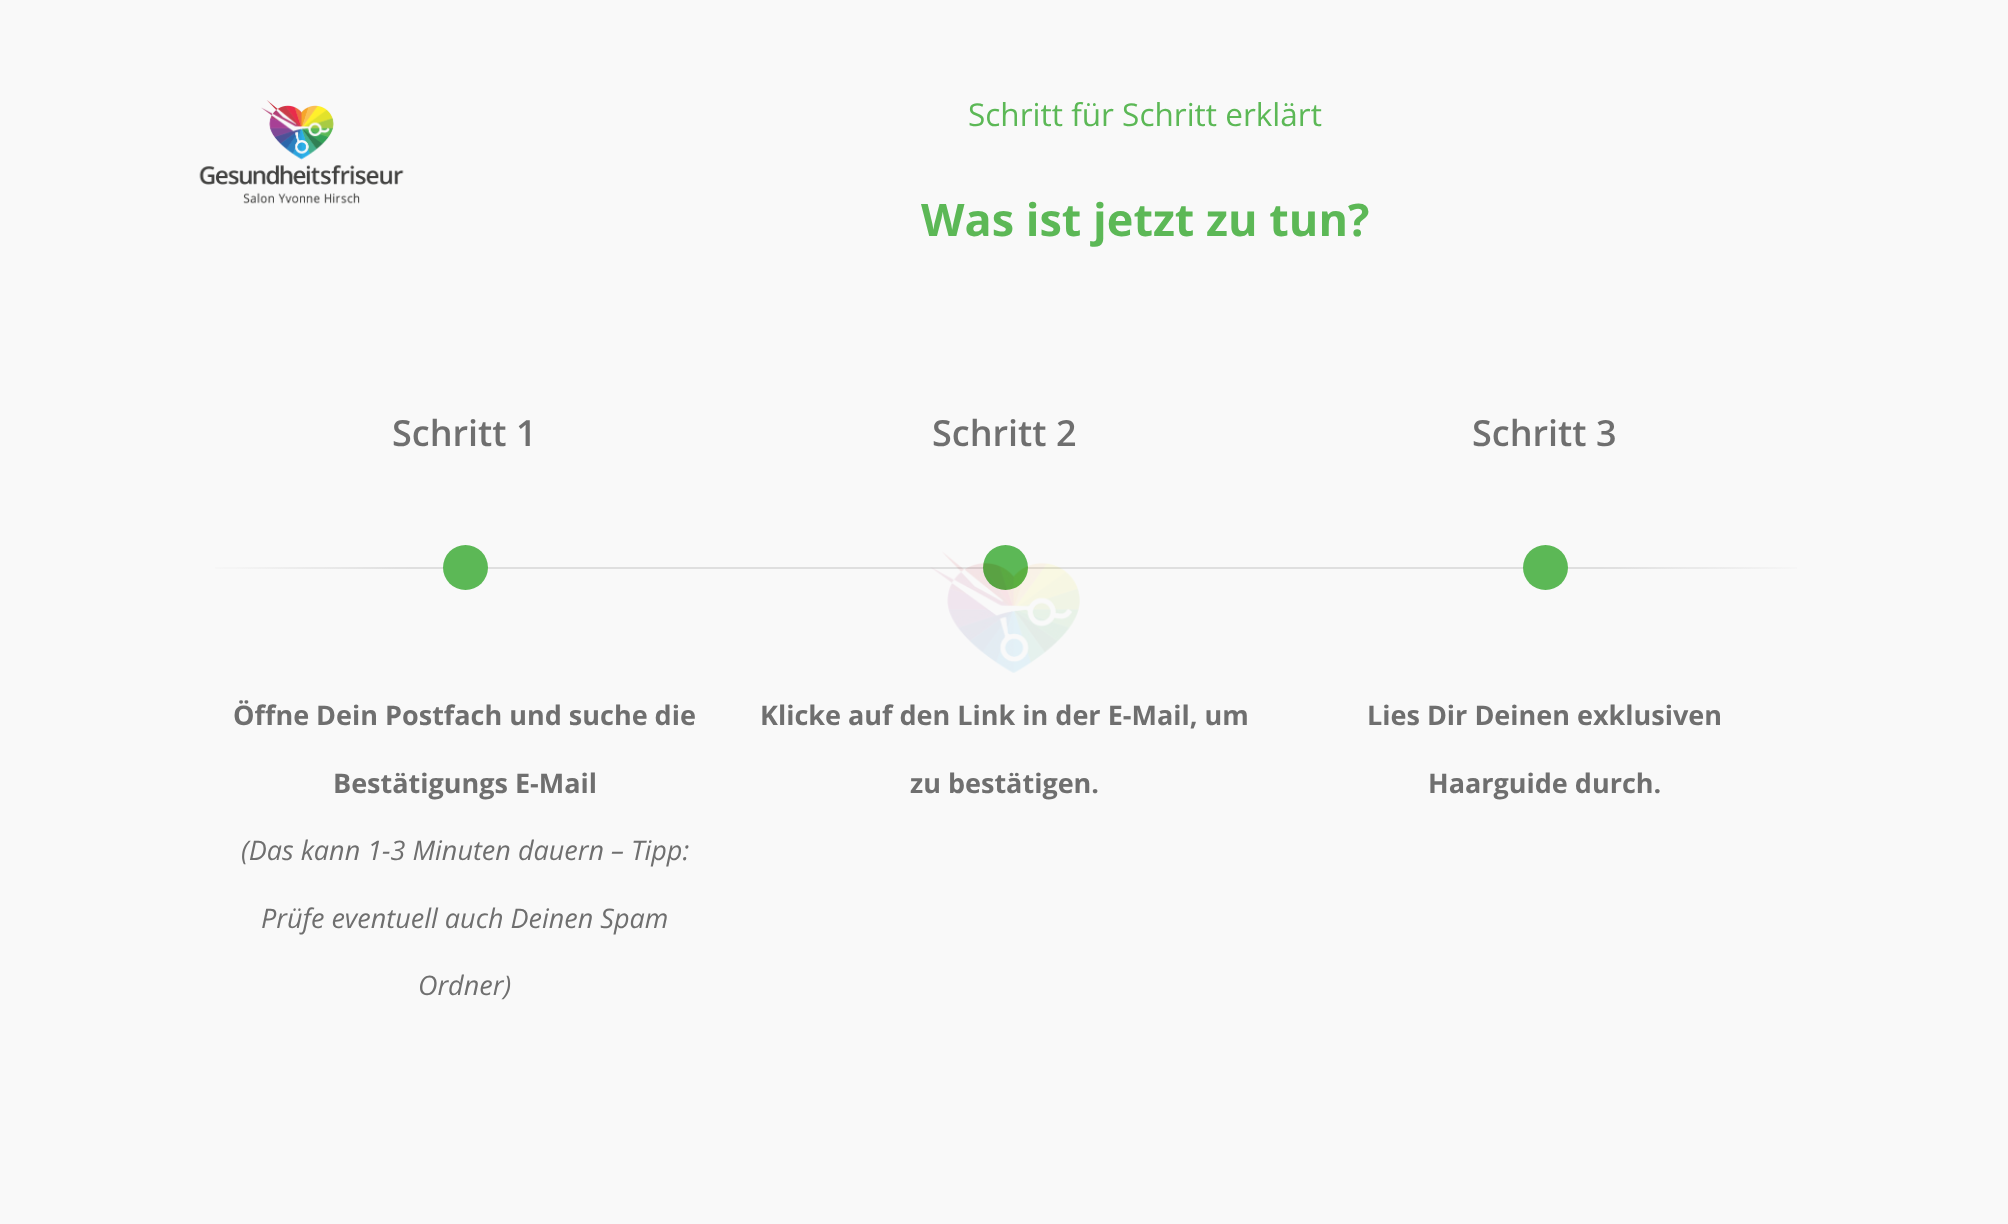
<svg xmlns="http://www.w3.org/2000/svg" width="2008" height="1224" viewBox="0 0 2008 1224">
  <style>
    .t1 { font: 31.5px Open Sans; fill: #4db247; }
    .t2 { font: bold 45px Open Sans; fill: #4db247; }
    .t3 { font: 600 36px Open Sans; fill: #626262; }
    .t4 { font: bold 27px Open Sans; fill: #626262; }
    .t5 { font: italic 27px Open Sans; fill: #626262; }
  </style>
  <defs>
    <linearGradient id="g1" gradientUnits="userSpaceOnUse" x1="196" y1="568" x2="736" y2="568"><stop offset="0" stop-color="#f9f9f9"/><stop offset="0.4" stop-color="#dcdcdc"/></linearGradient>
    <linearGradient id="g2" gradientUnits="userSpaceOnUse" x1="1276" y1="568" x2="1816" y2="568"><stop offset="0.6" stop-color="#dcdcdc"/><stop offset="1" stop-color="#f9f9f9"/></linearGradient>
  </defs>
  <rect width="100%" height="100%" fill="#f9f9f9"/>
  <image x="199" y="100" width="205" height="104" href="images/2.png"/>
  <text x="968" y="126" class="t1">Schritt für Schritt erklärt</text>
  <text x="921" y="236" class="t2">Was ist jetzt zu tun?</text>
  <text x="392" y="446" class="t3">Schritt 1</text>
  <rect x="215" y="567" width="521" height="2" fill="url(#g1)"/>
  <circle cx="465.5" cy="567.5" r="22.5" fill="#4db247"/>
  <text x="233" y="725" class="t4">Öffne Dein Postfach und suche die</text>
  <text x="333" y="793" class="t4">Bestätigungs E-Mail</text>
  <text x="241" y="860" class="t5">(Das kann 1-3 Minuten dauern – Tipp:</text>
  <text x="261" y="928" class="t5">Prüfe eventuell auch Deinen Spam</text>
  <text x="418" y="995" class="t5">Ordner)</text>
  <text x="932" y="446" class="t3">Schritt 2</text>
  <rect x="736" y="567" width="540" height="2" fill="#dcdcdc"/>
  <circle cx="1005.5" cy="567.5" r="22.5" fill="#4db247"/>
  <text x="760" y="725" class="t4">Klicke auf den Link in der E-Mail, um</text>
  <text x="910" y="793" class="t4">zu bestätigen.</text>
  <text x="1472" y="446" class="t3">Schritt 3</text>
  <rect x="1276" y="567" width="521" height="2" fill="url(#g2)"/>
  <circle cx="1545.5" cy="567.5" r="22.5" fill="#4db247"/>
  <text x="1367" y="725" class="t4">Lies Dir Deinen exklusiven</text>
  <text x="1428" y="793" class="t4">Haarguide durch.</text>
  <image x="200" y="101" width="1520" height="899" href="images/1.png"/>
</svg>
